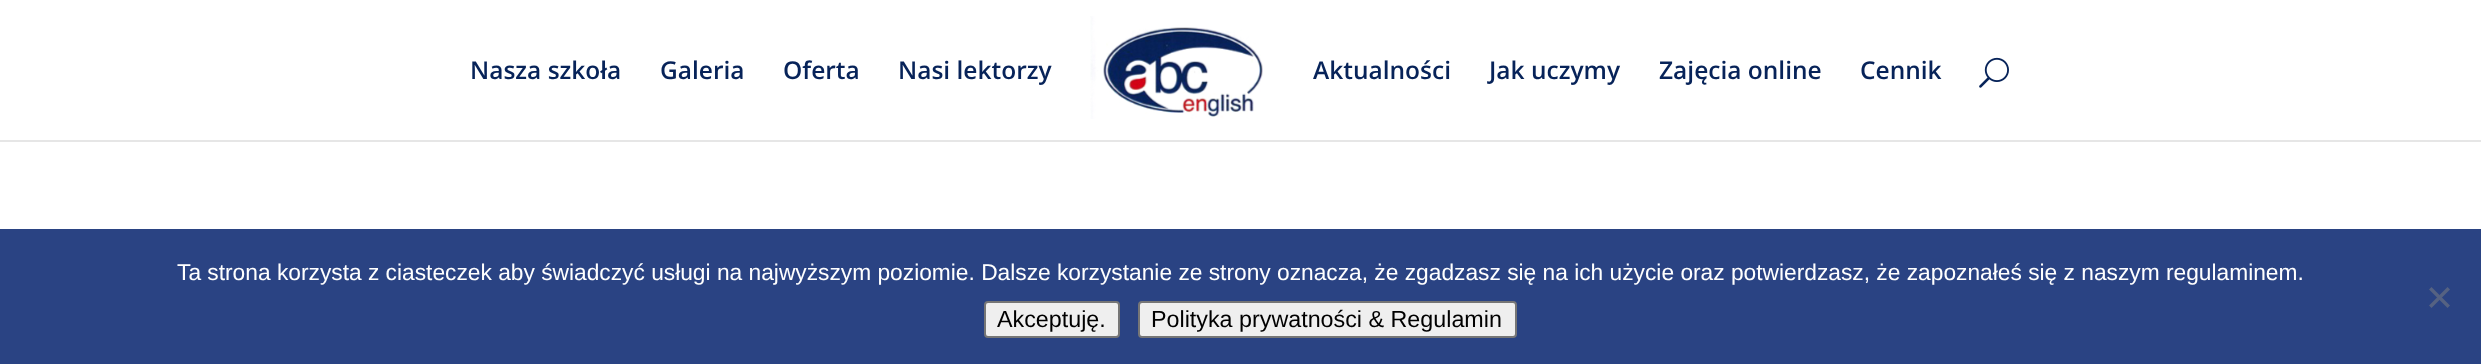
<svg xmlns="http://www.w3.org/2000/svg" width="2481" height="364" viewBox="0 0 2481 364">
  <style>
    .t1 { font: 600 24.5px Open Sans; fill: #072359; }
    .t2 { font: 22.75px Liberation Sans; fill: #fff; }
    .t3 { font: 23.3px Liberation Sans; fill: #000; }
  </style>
  <rect width="100%" height="100%" fill="#fff"/>
  <path d="M0 140V142H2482V2V140Z" fill="#e6e6e6"/>
  <text x="470" y="79" class="t1">Nasza szkoła</text>
  <text x="660" y="79" class="t1">Galeria</text>
  <text x="783" y="79" class="t1">Oferta</text>
  <text x="898" y="79" class="t1">Nasi lektorzy</text>
  <image x="1090" y="16" width="173" height="103" href="images/1.png"/>
  <text x="1313" y="79" class="t1">Aktualności</text>
  <text x="1489" y="79" class="t1">Jak uczymy</text>
  <text x="1659" y="79" class="t1">Zajęcia online</text>
  <text x="1860" y="79" class="t1">Cennik</text>
  <image x="1979" y="57" width="30" height="31" href="images/2.png"/>
  <rect x="0" y="229" width="2481" height="135" fill="#2a4383"/>
  <text x="177" y="280" class="t2">Ta strona korzysta z ciasteczek aby świadczyć usługi na najwyższym poziomie. Dalsze korzystanie ze strony oznacza, że zgadzasz się na ich użycie oraz potwierdzasz, że zapoznałeś się z naszym regulaminem.</text>
  <path d="M2447.5 287L2450 289.5L2431.5 308L2429 305.5Z" fill="#556282"/>
  <path d="M2429 289.5L2431.5 287L2450 305.5L2447.5 308Z" fill="#556282"/>
  <rect x="985" y="302" width="134" height="35" rx="3" fill="#efefef" stroke="#767676" stroke-width="2"/>
  <text x="997" y="327" class="t3">Akceptuję.</text>
  <rect x="1139" y="302" width="377" height="35" rx="3" fill="#efefef" stroke="#767676" stroke-width="2"/>
  <text x="1151" y="327" class="t3">Polityka prywatności &amp; Regulamin</text>
</svg>
